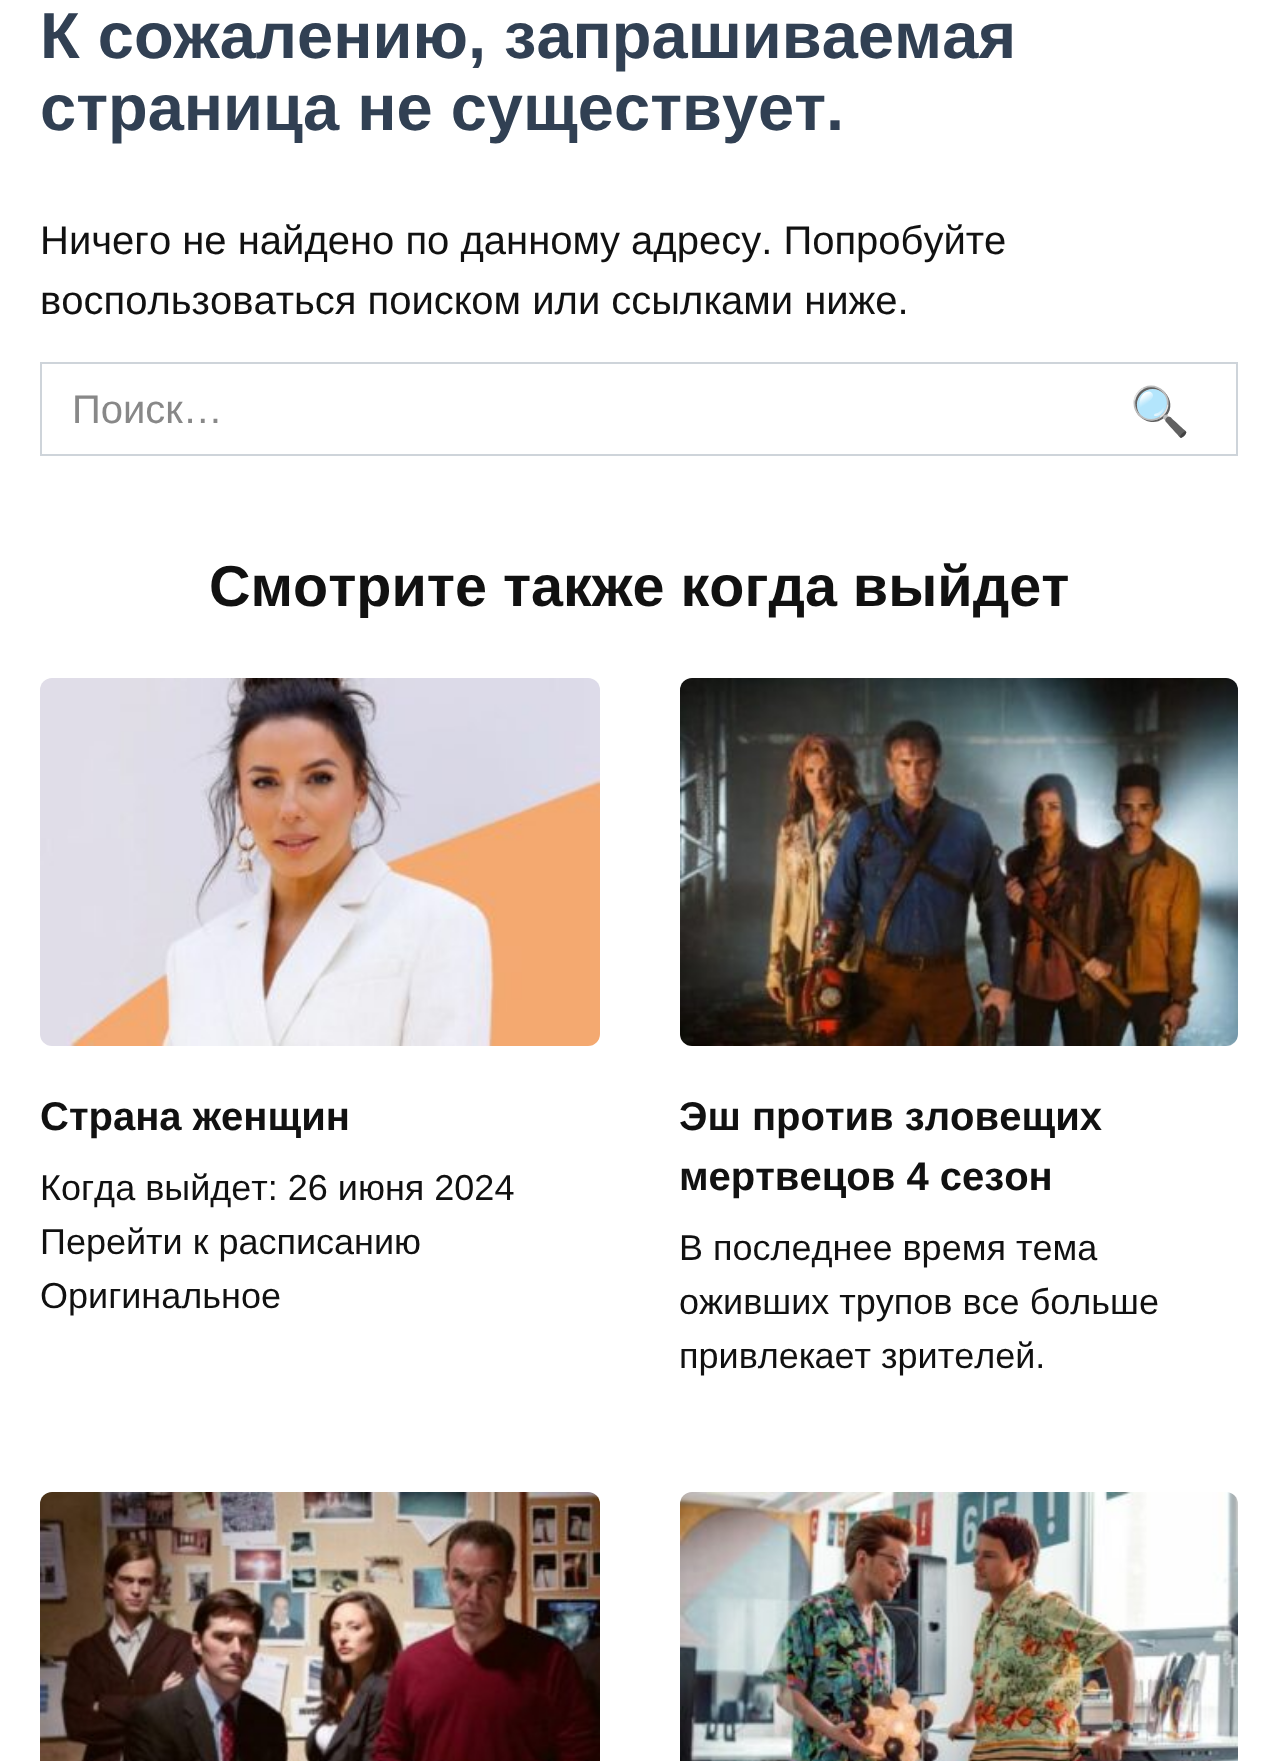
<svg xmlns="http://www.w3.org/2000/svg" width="1278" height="1761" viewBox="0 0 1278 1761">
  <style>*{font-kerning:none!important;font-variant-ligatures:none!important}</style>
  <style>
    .t1 { font: bold 65px Liberation Sans; fill: #314053; }
    .t2 { font: 40px Liberation Sans; fill: #111; }
    .t3 { font: 40px Liberation Sans; fill: #888; }
    .t4 { font: 48px Noto Color Emoji; fill: #000; }
    .t5 { font: bold 57.5px Liberation Sans; fill: #111; }
    .t6 { font: bold 40px Liberation Sans; fill: #111; }
    .t7 { font: 36px Liberation Sans; fill: #111; }
  </style>
  <rect width="100%" height="100%" fill="#fff"/>
  <text x="40" y="58" class="t1">К сожалению, запрашиваемая</text>
  <text x="40" y="130" class="t1">страница не существует.</text>
  <text x="40" y="254" class="t2">Ничего не найдено по данному адресу. Попробуйте</text>
  <text x="40" y="314" class="t2">воспользоваться поиском или ссылками ниже.</text>
  <rect x="41" y="363" width="1196" height="92" fill="none" stroke="#ced4da" stroke-width="2"/>
  <text x="72" y="423" class="t3">Поиск…</text>
  <text x="1130" y="428" class="t4">🔍</text>
  <text x="209" y="606" class="t5">Смотрите также когда выйдет</text>
  <image x="40" y="678" width="560" height="368" href="images/1.png"/>
  <text x="40" y="1130" class="t6">Страна женщин</text>
  <text x="40" y="1200" class="t7">Когда выйдет: 26 июня 2024</text>
  <text x="40" y="1254" class="t7">Перейти к расписанию</text>
  <text x="40" y="1308" class="t7">Оригинальное</text>
  <image x="680" y="678" width="558" height="368" href="images/2.png"/>
  <text x="679" y="1130" class="t6">Эш против зловещих</text>
  <text x="679" y="1190" class="t6">мертвецов 4 сезон</text>
  <text x="679" y="1260" class="t7">В последнее время тема</text>
  <text x="679" y="1314" class="t7">оживших трупов все больше</text>
  <text x="679" y="1368" class="t7">привлекает зрителей.</text>
  <image x="40" y="1492" width="560" height="269" href="images/3.png"/>
  <image x="680" y="1492" width="558" height="269" href="images/4.png"/>
</svg>
